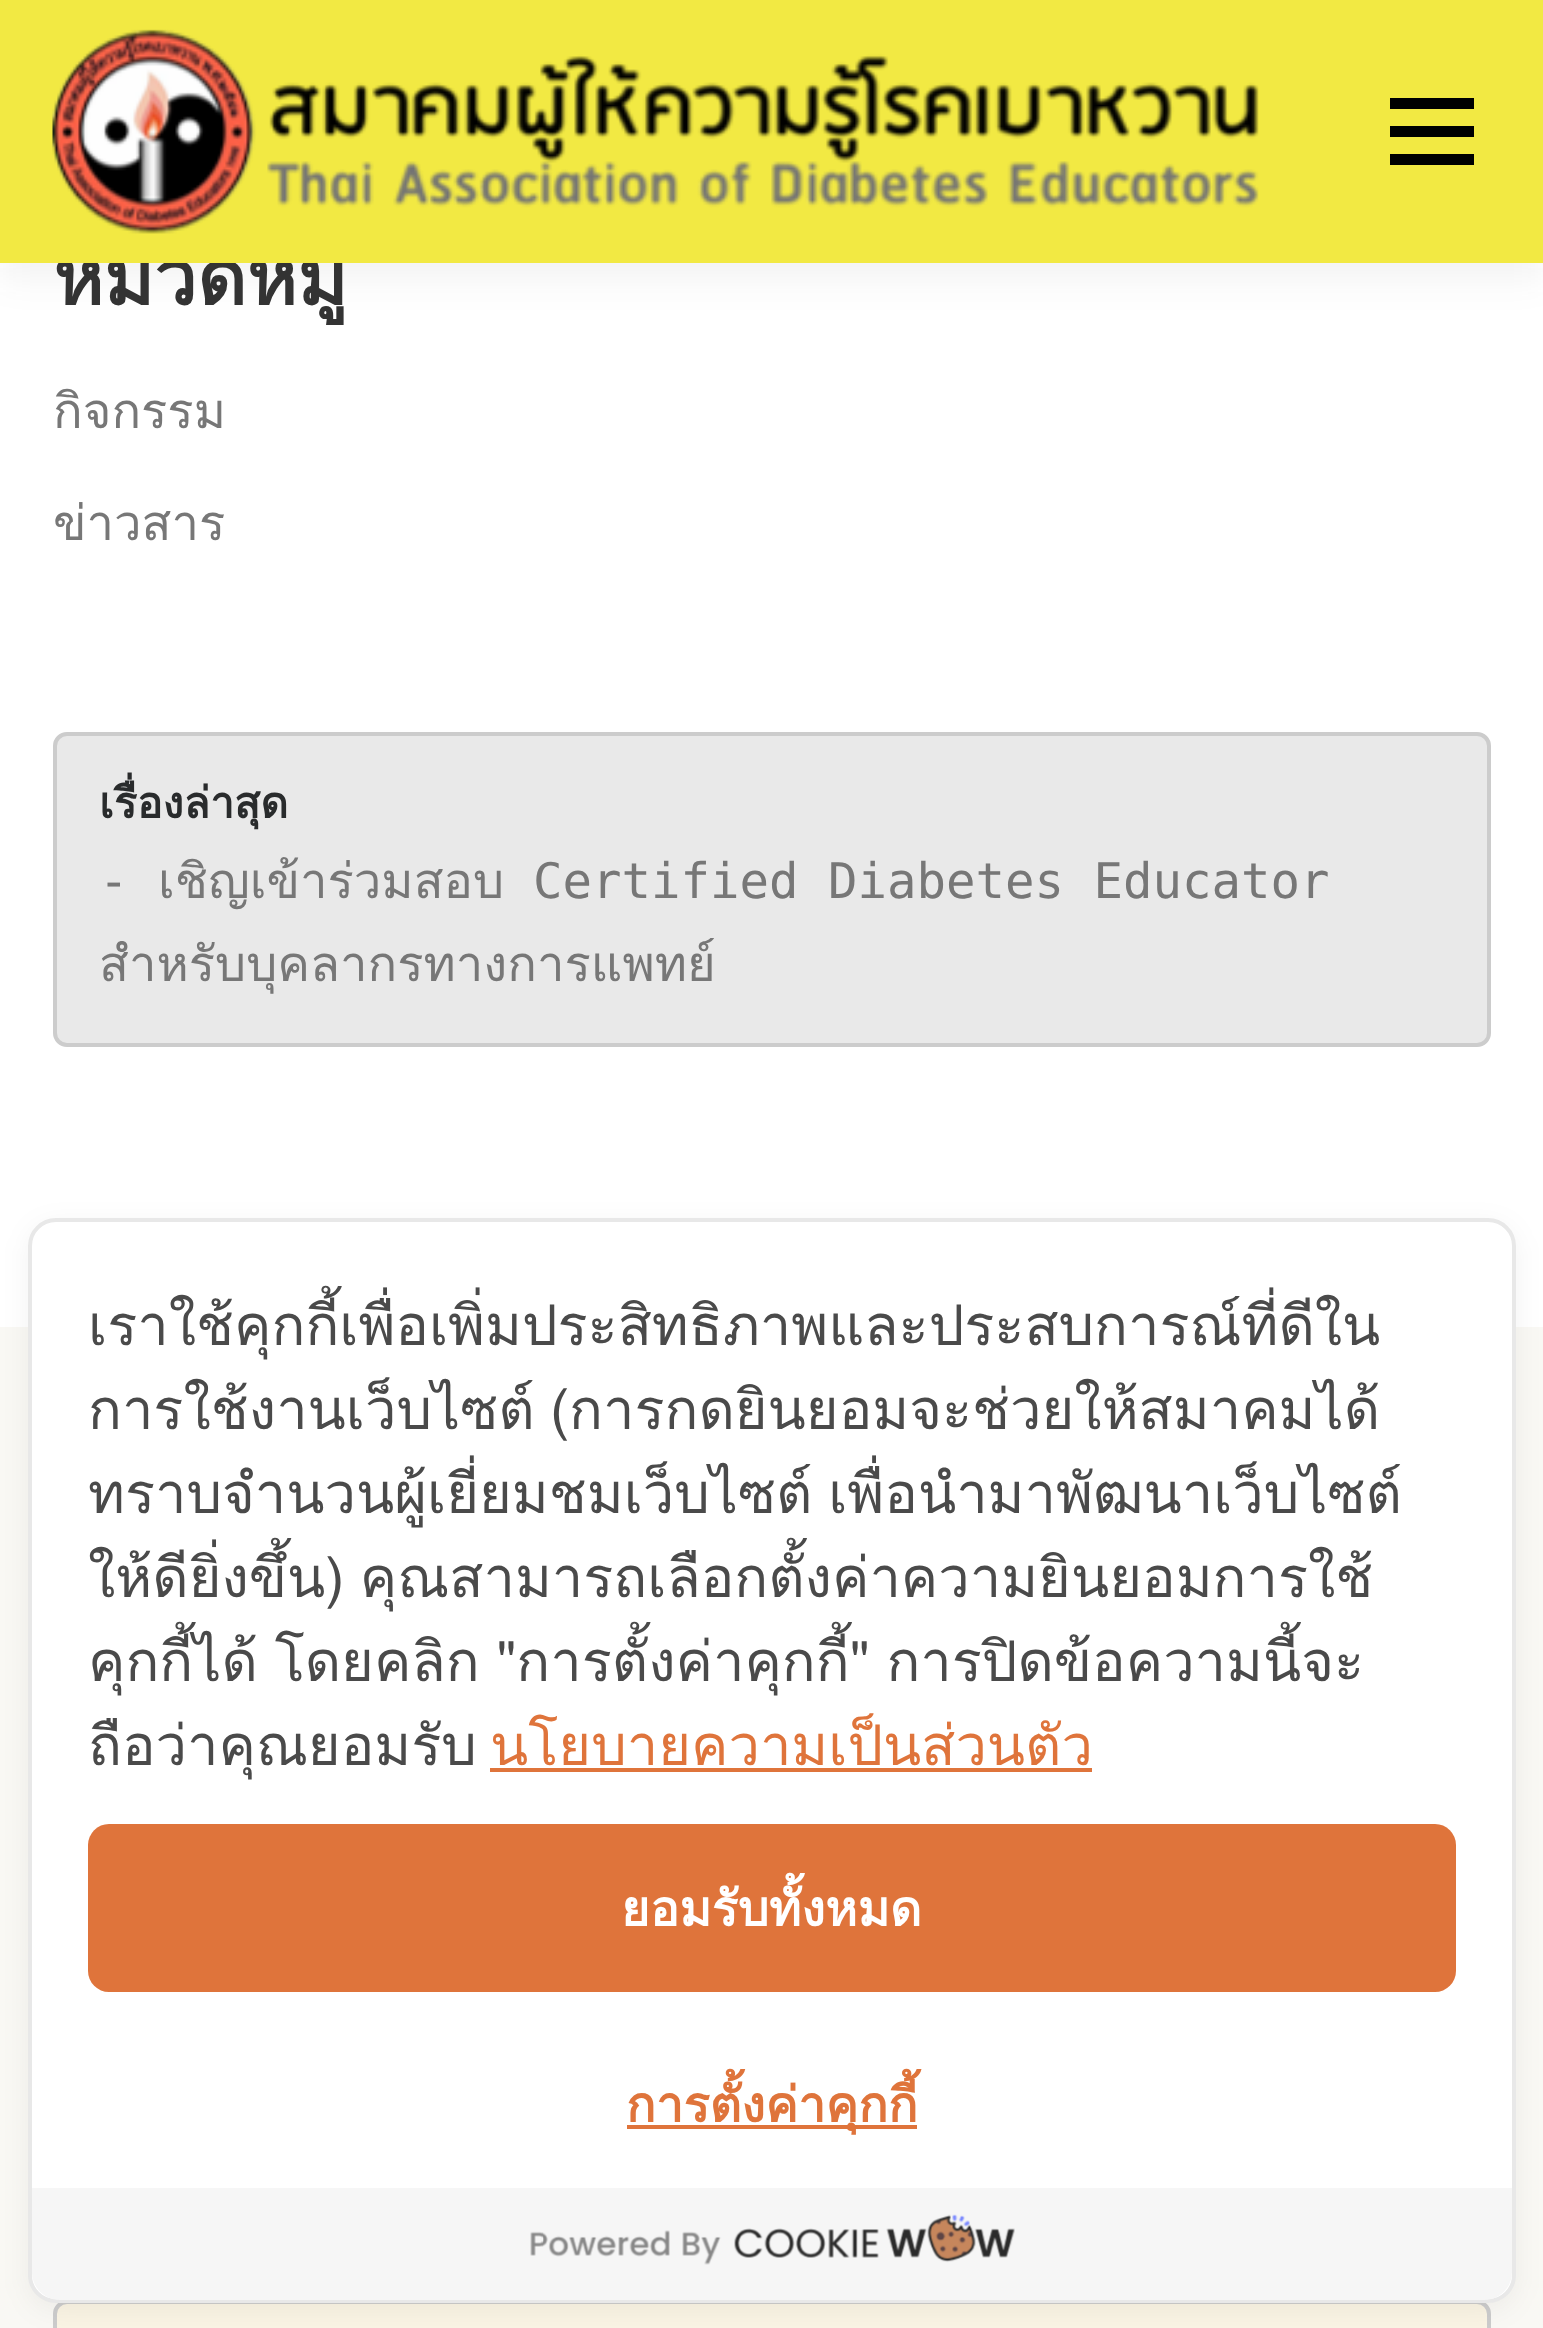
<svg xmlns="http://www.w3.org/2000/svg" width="1543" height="2328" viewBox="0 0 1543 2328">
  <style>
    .t1 { font: bold 76.5px Loma; fill: #333; }
    .t2 { font: 49px Loma; fill: #777; }
    .t3 { font: bold 43px Loma; fill: #292b2c; }
    .t4 { font: 49px DejaVu Sans Mono; fill: #777; }
    .t5 { font: 56px Loma; fill: #4a4a4a; }
    .t6 { font: 56px Loma; fill: #df743b; }
    .t7 { font: bold 49px Loma; fill: #fff; }
    .t8 { font: bold 49px Loma; fill: #df743b; }
  </style>
  <rect width="100%" height="100%" fill="#fff"/>
  <rect x="0" y="18" width="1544" height="262" fill="#3232320f" filter="blur(17.5px)"/>
  <text x="53" y="305" class="t1">หมวดหมู่</text>
  <rect x="0" y="0" width="1543" height="263" fill="#f2e943"/>
  <image x="52" y="29" width="1207" height="205" href="images/1.png"/>
  <rect x="1390" y="126" width="84" height="11" fill="#000"/>
  <rect x="1390" y="98" width="84" height="11" fill="#000"/>
  <rect x="1390" y="154" width="84" height="11" fill="#000"/>
  <text x="53" y="428" class="t2">กิจกรรม</text>
  <text x="53" y="540" class="t2">ข่าวสาร</text>
  <rect x="55" y="734" width="1434" height="311" rx="12" fill="#e9e9e9" stroke="#ccc" stroke-width="4"/>
  <text x="99" y="818" class="t3">เรื่องล่าสุด</text>
  <text x="99" y="898" class="t4">-</text>
  <text x="158" y="898" class="t2">เชิญเข้าร่วมสอบ</text>
  <text x="533" y="898" class="t4">Certified Diabetes Educator</text>
  <text x="99" y="981" class="t2">สำหรับบุคลากรทางการแพทย์</text>
  <rect x="0" y="1327" width="1543" height="1001" fill="#f9f8f4"/>
  <rect x="55" y="2302" width="1434" height="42" rx="12" fill="#faf4e4" stroke="#ccc" stroke-width="4"/>
  <rect x="28" y="1225" width="1488" height="1085" rx="28" fill="#0000000d" filter="blur(14px)"/>
  <rect x="30" y="1220" width="1484" height="1081" rx="26" fill="#fff" stroke="#e8e8e8" stroke-width="4"/>
  <text x="88" y="1345" class="t5">เราใช้คุกกี้เพื่อเพิ่มประสิทธิภาพและประสบการณ์ที่ดีใน</text>
  <text x="88" y="1429" word-spacing="-3" class="t5">การใช้งานเว็บไซต์ (การกดยินยอมจะช่วยให้สมาคมได้</text>
  <text x="88" y="1513" word-spacing="-3" class="t5">ทราบจำนวนผู้เยี่ยมชมเว็บไซต์ เพื่อนำมาพัฒนาเว็บไซต์</text>
  <text x="88" y="1597" word-spacing="-3" class="t5">ให้ดียิ่งขึ้น) คุณสามารถเลือกตั้งค่าความยินยอมการใช้</text>
  <text x="88" y="1681" word-spacing="-2" class="t5">คุกกี้ได้ โดยคลิก "การตั้งค่าคุกกี้" การปิดข้อความนี้จะ</text>
  <text x="88" y="1765" class="t5">ถือว่าคุณยอมรับ</text>
  <text x="490" y="1765" class="t6">นโยบายความเป็นส่วนตัว</text>
  <rect x="490" y="1768" width="602" height="4" fill="#df743b"/>
  <rect x="88" y="1824" width="1368" height="168" rx="21" fill="#df743b"/>
  <text x="621" y="1926" class="t7">ยอมรับทั้งหมด</text>
  <rect x="627" y="2125" width="290" height="4" fill="#df743b"/>
  <text x="626" y="2122" class="t8">การตั้งค่าคุกกี้</text>
  <path d="M32 2188H1512V2272C1512 2287.5 1499.5 2300 1484 2300H60C44.5 2300 32 2287.5 32 2272Z" fill="#f6f6f6"/>
  <image x="530" y="2214" width="485" height="51" href="images/2.png"/>
</svg>
